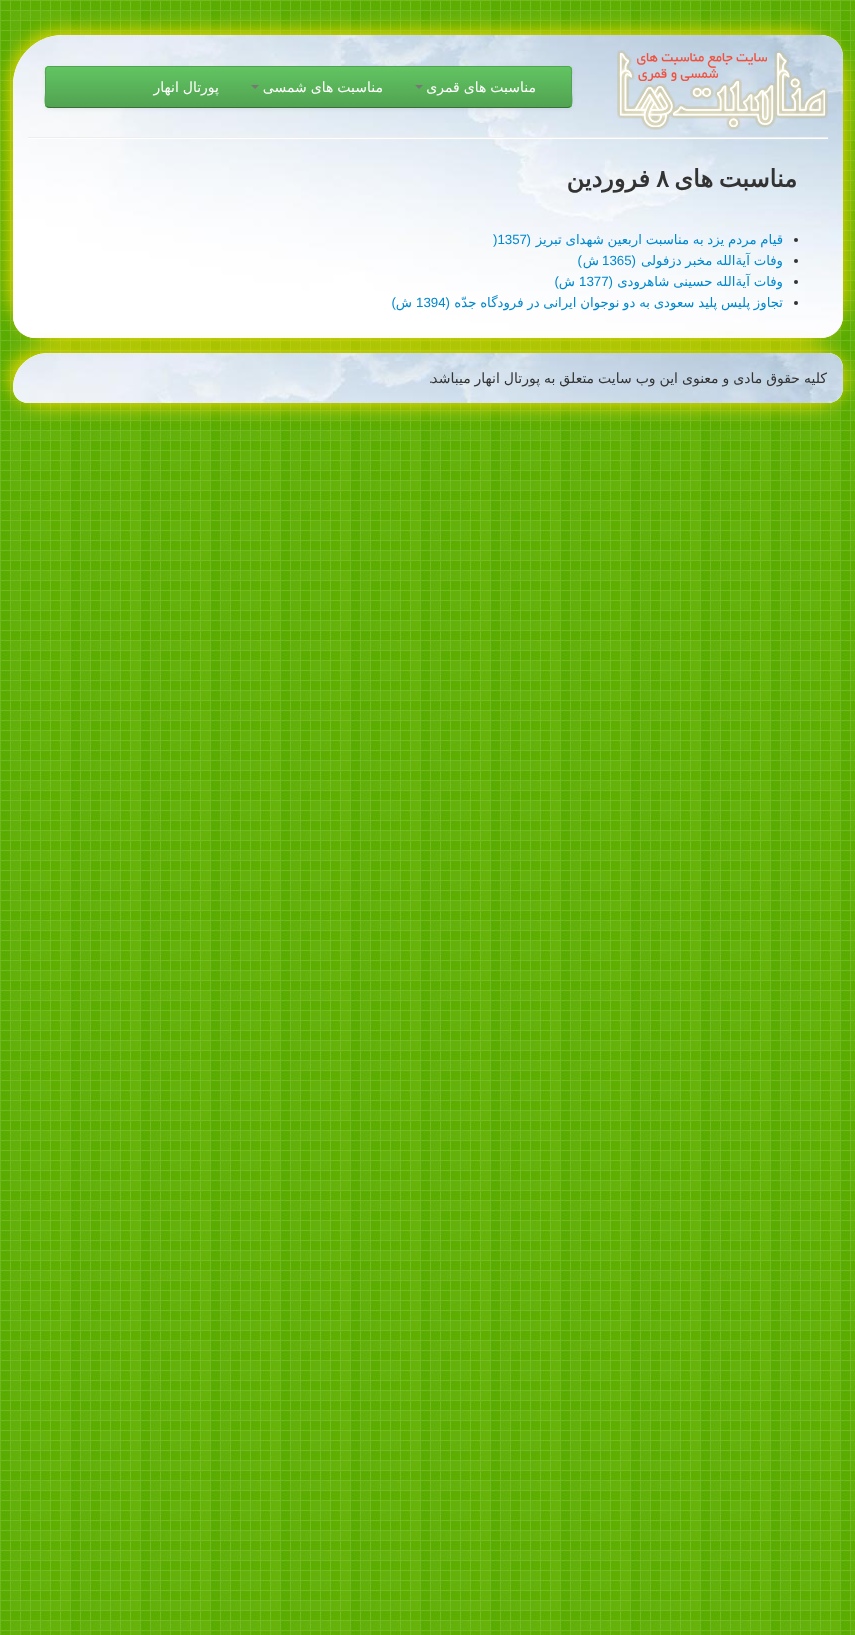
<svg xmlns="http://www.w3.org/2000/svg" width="855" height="1635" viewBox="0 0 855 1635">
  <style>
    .t1 { font: 14px DejaVu Sans; direction: rtl; fill: #fff; }
    .t2 { font: bold 24px DejaVu Sans; direction: rtl; fill: #333; }
    .t3 { font: bold 24px DejaVu Sans; fill: #333; }
    .t4 { font: 13.3px DejaVu Sans; direction: rtl; fill: #08c; }
    .t5 { font: 13.3px Liberation Sans; direction: rtl; fill: #08c; }
    .t6 { font: 13.3px Liberation Sans; fill: #08c; }
    .t7 { font: 14px DejaVu Sans; direction: rtl; fill: #333; }
    .t8 { font: 14px Liberation Sans; direction: rtl; fill: #333; }
  </style>
  <defs>
    <clipPath id="clip1"><rect x="45" y="66" width="527" height="42" rx="4"/></clipPath>
    <linearGradient id="g1" gradientUnits="userSpaceOnUse" x1="309" y1="67" x2="309" y2="107"><stop offset="0" stop-color="#62c462"/><stop offset="1" stop-color="#51a351"/></linearGradient>
  </defs>
  <rect width="100%" height="100%" fill="#fff"/>
  <image x="0" y="0" width="855" height="1635" href="images/1.png"/>
  <rect x="9" y="31" width="838" height="311" rx="54" fill="#ffdd00cc" filter="blur(8.5px)"/>
  <path d="M63 35H821C833 35 843 45 843 57V316C843 328 833 338 821 338H35C23 338 13 328 13 316V85C13 57.5 35.5 35 63 35Z" fill="#fff"/>
  <image x="13" y="35" width="830" height="303" href="images/2.png"/>
  <image x="617" y="50" width="211" height="80" href="images/3.png"/>
  <rect x="45" y="67" width="527" height="42" rx="4" fill="#00000012" filter="blur(2px)"/>
  <rect x="45" y="66" width="527" height="42" rx="4" fill="#2de015"/>
  <g clip-path="url(#clip1)">
    <rect x="45" y="67" width="527" height="40" fill="url(#g1)"/>
  </g>
  <path d="M570.5 106.5L568 107.5H49L46.5 106.5" fill="none" stroke="#387038"/>
  <path d="M46.5 106.5C44 104 45.5 95.5 45.5 92.5V75.5C45.5 73 44.5 67 48.5 66.5H568.5C572.5 67 571.5 73 571.5 75.5V92.5C571.5 95.5 573 104 570.5 106.5" fill="none" stroke="#51a351"/>
  <text x="536" y="92" word-spacing="-0.5" class="t1">مناسبت های قمری</text>
  <path d="M415 85H423L419 89Z" fill="#777"/>
  <text x="383" y="92" word-spacing="-0.5" class="t1">مناسبت های شمسی</text>
  <path d="M251 85H259L255 89Z" fill="#777"/>
  <text x="219" y="92" word-spacing="-0.5" class="t1">پورتال انهار</text>
  <rect x="28" y="137" width="800" height="1" fill="#eee"/>
  <rect x="28" y="138" width="800" height="1" fill="#fff"/>
  <text x="797" y="187" word-spacing="-2" class="t2">مناسبت های</text>
  <text x="656" y="187" class="t3">۸</text>
  <text x="650" y="187" class="t2">فروردین</text>
  <circle cx="796" cy="240" r="2" fill="#333"/>
  <text x="783" y="244" word-spacing="-0.5" class="t4">قيام مردم يزد به مناسبت اربعين شهداى تبريز</text>
  <text x="531" y="244" class="t5">(</text>
  <text x="493" y="244" class="t6">)1357</text>
  <circle cx="796" cy="261" r="2" fill="#333"/>
  <text x="783" y="265" word-spacing="-0.5" class="t4">وفات آیةالله مخبر دزفولی</text>
  <text x="636" y="265" class="t5">(</text>
  <text x="602" y="265" class="t6">1365</text>
  <text x="599" y="265" class="t4">ش</text>
  <text x="582" y="265" class="t5">)</text>
  <circle cx="796" cy="282" r="2" fill="#333"/>
  <text x="783" y="286" word-spacing="-0.5" class="t4">وفات آیةالله حسینی شاهرودی</text>
  <text x="613" y="286" class="t5">(</text>
  <text x="579" y="286" class="t6">1377</text>
  <text x="575" y="286" class="t4">ش</text>
  <text x="559" y="286" class="t5">)</text>
  <circle cx="796" cy="303" r="2" fill="#333"/>
  <text x="783" y="307" word-spacing="-0.5" class="t4">تجاوز پلیس پلید سعودی به دو نوجوان ایرانی در فرودگاه جدّه</text>
  <text x="450" y="307" class="t5">(</text>
  <text x="416" y="307" class="t6">1394</text>
  <text x="412" y="307" class="t4">ش</text>
  <text x="396" y="307" class="t5">)</text>
  <rect x="9" y="349" width="838" height="58" rx="39" fill="#ffdd00cc" filter="blur(8.5px)"/>
  <path d="M48 353H828C836.5 353 843 359.5 843 368V388C843 396.5 836.5 403 828 403H28C19.5 403 13 396.5 13 388C13 368.5 28.5 353 48 353Z" fill="#fff"/>
  <image x="13" y="353" width="830" height="50" href="images/4.png"/>
  <text x="827" y="383" word-spacing="-0.5" class="t7">کلیه حقوق مادی و معنوی این وب سایت متعلق به پورتال انهار میباشد</text>
  <text x="433" y="383" class="t8">.</text>
</svg>
